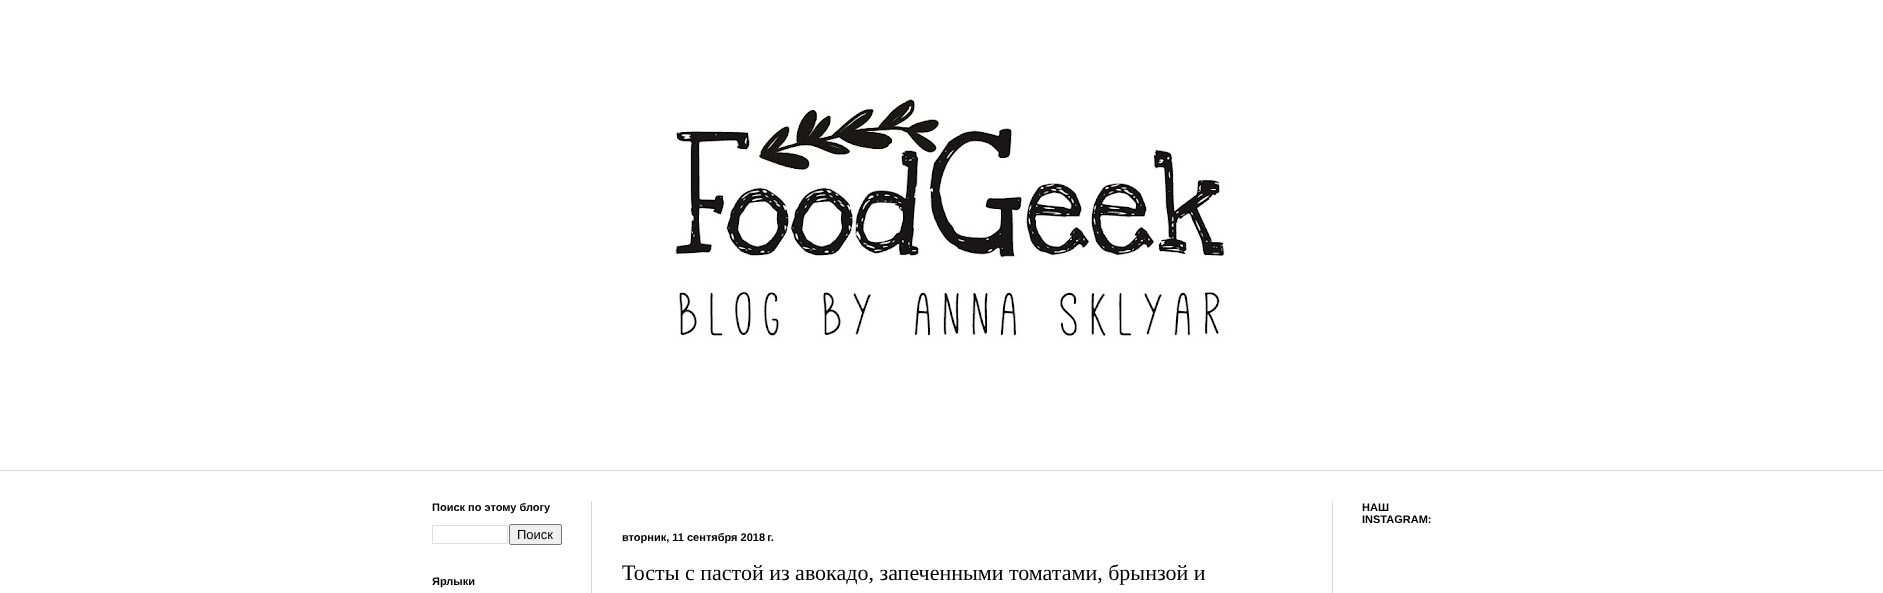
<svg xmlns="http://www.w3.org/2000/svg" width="1883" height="593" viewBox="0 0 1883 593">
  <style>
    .t1 { font: bold 11px Liberation Sans; fill: #000; }
    .t2 { font: 13px Liberation Sans; fill: #000; }
    .t3 { font: 22px Liberation Serif; fill: #000; }
  </style>
  <rect width="100%" height="100%" fill="#fff"/>
  <image x="674" y="96" width="552" height="246" href="images/1.png"/>
  <rect x="0" y="470" width="1883" height="1" fill="#d7d7d7"/>
  <rect x="591" y="501" width="1" height="92" fill="#d7d7d7"/>
  <rect x="1332" y="501" width="1" height="92" fill="#d7d7d7"/>
  <text x="432" y="511" class="t1">Поиск по этому блогу</text>
  <rect x="432.5" y="525.5" width="75" height="18" fill="none" stroke="#ddd"/>
  <rect x="509.5" y="524.5" width="52" height="20" rx="1.5" fill="#efefef" stroke="#767676"/>
  <text x="517" y="539" class="t2">Поиск</text>
  <text x="432" y="585" class="t1">Ярлыки</text>
  <text x="1362" y="511" class="t1">НАШ</text>
  <text x="1362" y="523" class="t1">INSTAGRAM:</text>
  <text x="622" y="541" class="t1">вторник, 11 сентября 2018 г.</text>
  <text x="622" y="580" class="t3">Тосты с пастой из авокадо, запеченными томатами, брынзой и</text>
</svg>
